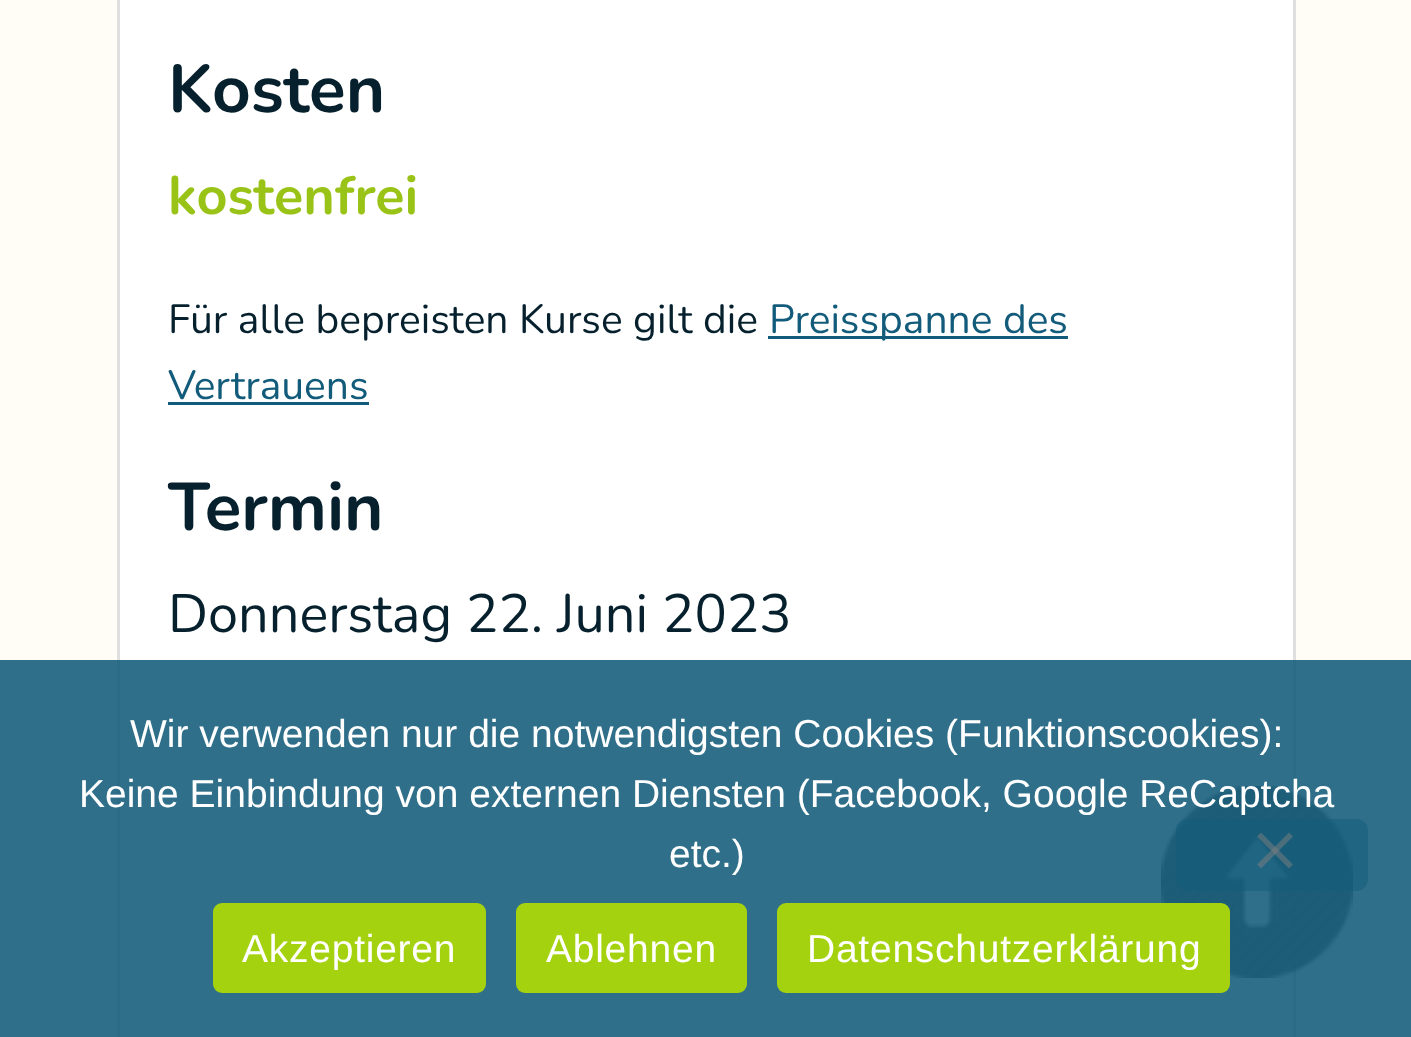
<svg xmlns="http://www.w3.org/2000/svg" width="1411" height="1037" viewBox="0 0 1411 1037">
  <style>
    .t1 { font: bold 67.5px Nunito; fill: #06212d; }
    .t2 { font: bold 54px Nunito; fill: #9ac318; }
    .t3 { font: 40.75px Nunito; fill: #06212d; }
    .t4 { font: 40.75px Nunito; fill: #125b7a; }
    .t5 { font: 54px Nunito; fill: #06212d; }
    .t6 { font: 39px Liberation Sans; fill: #fff; }
    .t7 { font: 39px Liberation Sans; letter-spacing: 0.75px; fill: #fff; }
  </style>
  <rect width="100%" height="100%" fill="#fffdf5"/>
  <rect x="118.5" y="-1.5" width="1176" height="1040" fill="#fff" stroke="#dfdfdf" stroke-width="3"/>
  <text x="168" y="112" class="t1">Kosten</text>
  <text x="168" y="214" class="t2">kostenfrei</text>
  <text x="168" y="333" class="t3">Für alle bepreisten Kurse gilt die</text>
  <rect x="768" y="336" width="300" height="3" fill="#125b7a"/>
  <text x="769" y="333" class="t4">Preisspanne des</text>
  <text x="168" y="399" class="t4">Vertrauens</text>
  <rect x="168" y="402" width="201" height="3" fill="#125b7a"/>
  <text x="168" y="530" class="t1">Termin</text>
  <text x="168" y="632" class="t5">Donnerstag 22. Juni 2023</text>
  <image x="1161" y="786" width="192" height="192" href="images/1.png"/>
  <rect x="0" y="660" width="1411" height="377" fill="#125b7ae0"/>
  <text x="130" y="747" class="t6">Wir verwenden nur die notwendigsten Cookies (Funktionscookies):</text>
  <text x="79" y="807" class="t6">Keine Einbindung von externen Diensten (Facebook, Google ReCaptcha</text>
  <text x="669" y="867" class="t6">etc.)</text>
  <rect x="1176" y="819" width="192" height="72" rx="12" fill="#115b7980"/>
  <path d="M1289 832.5L1293 836.5L1261 868.5L1257 864.5Z" fill="#80808080"/>
  <path d="M1257 836.5L1261 832.5L1293 864.5L1289 868.5Z" fill="#80808080"/>
  <rect x="213" y="903" width="273" height="90" rx="9" fill="#a5d20f"/>
  <text x="242" y="962" class="t7">Akzeptieren</text>
  <rect x="516" y="903" width="231" height="90" rx="9" fill="#a5d20f"/>
  <text x="546" y="962" class="t7">Ablehnen</text>
  <rect x="777" y="903" width="453" height="90" rx="9" fill="#a5d20f"/>
  <text x="807" y="962" class="t7">Datenschutzerklärung</text>
</svg>
